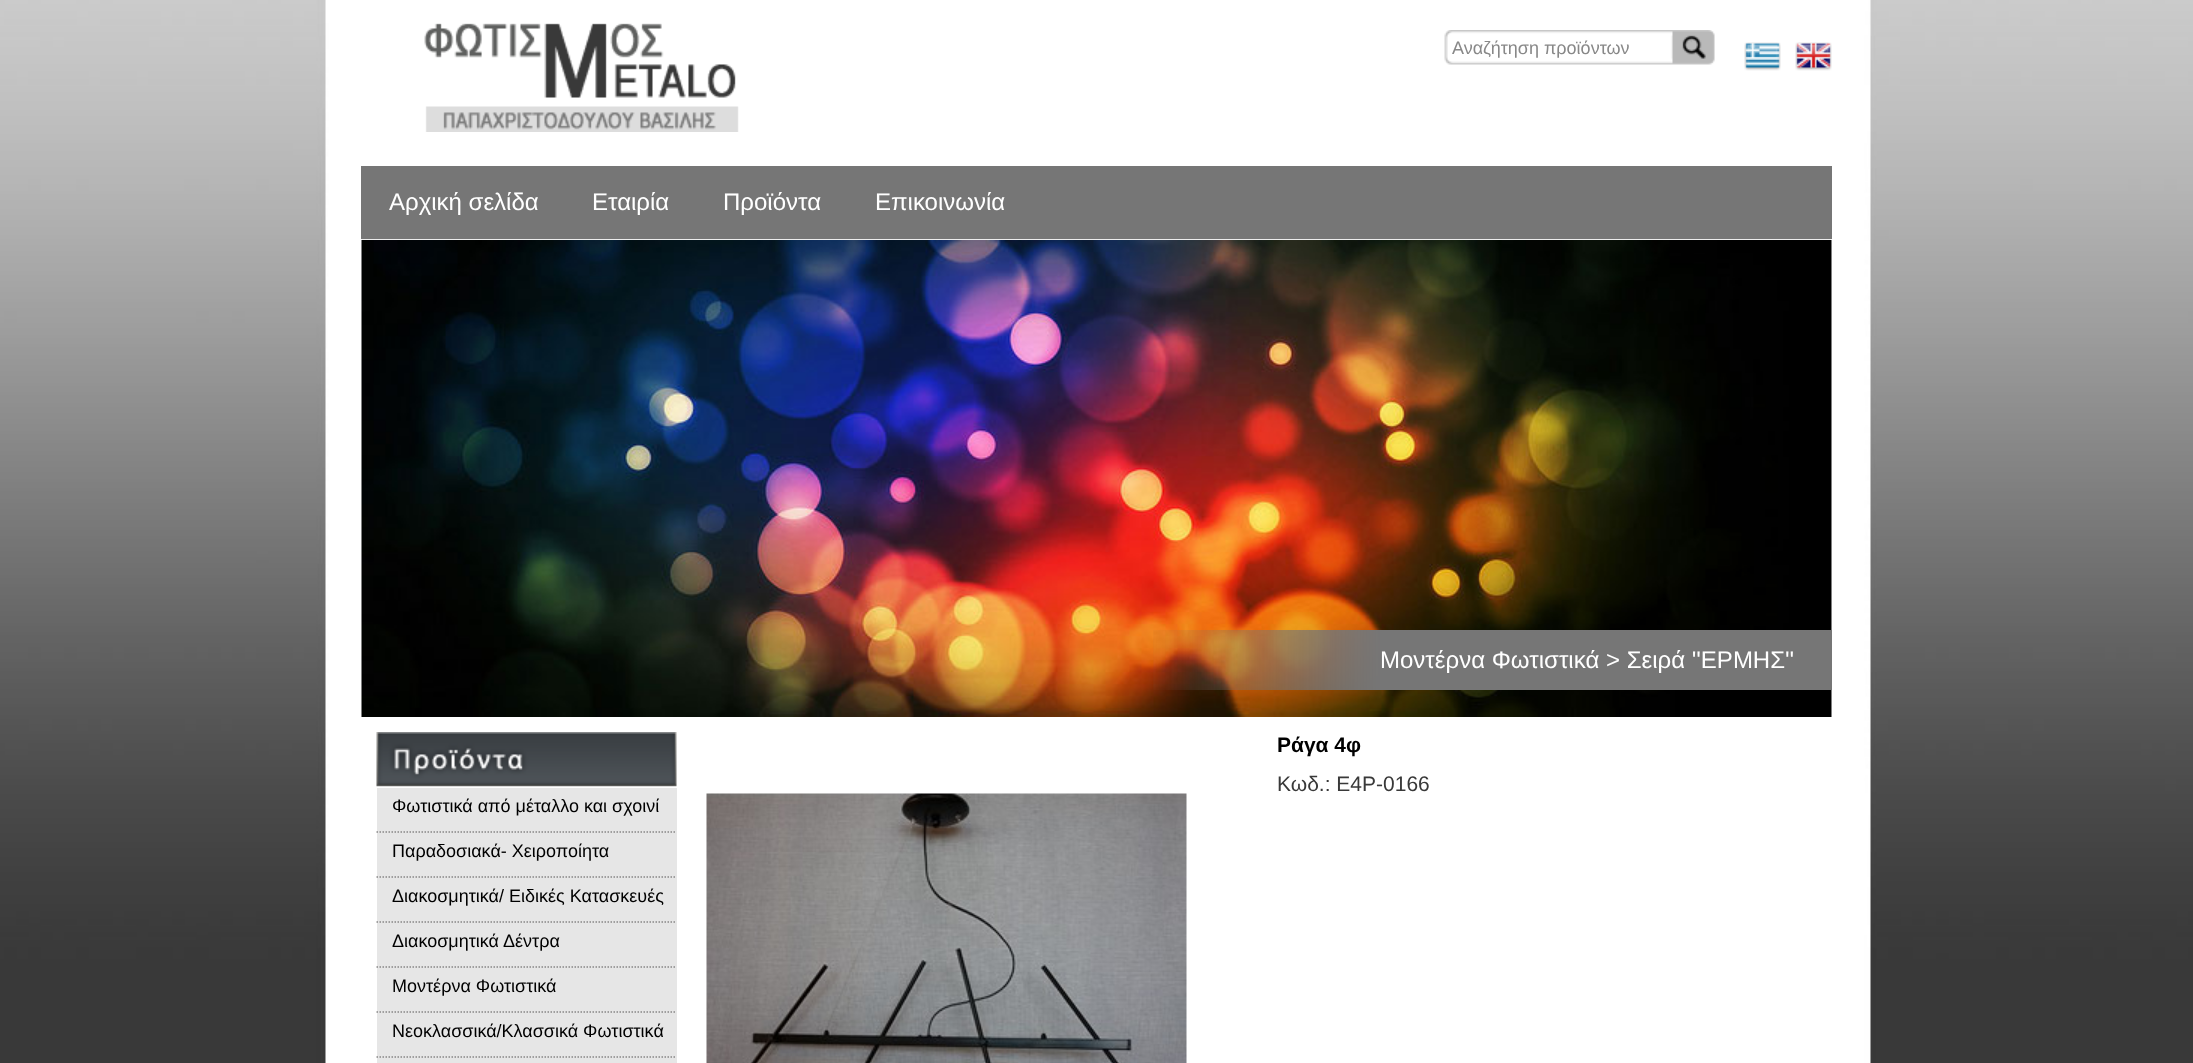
<svg xmlns="http://www.w3.org/2000/svg" width="2193" height="1063" viewBox="0 0 2193 1063">
  <style>
    .t1 { font: 18px Liberation Sans; fill: #888; }
    .t2 { font: 24px Liberation Sans; fill: #fff; }
    .t3 { font: bold 21px Liberation Sans; fill: #000; }
    .t4 { font: 21px Liberation Sans; fill: #393939; }
    .t5 { font: 18px Liberation Sans; fill: #000; }
  </style>
  <rect width="100%" height="100%" fill="#fff"/>
  <image x="0" y="0" width="2193" height="1063" href="images/1.png"/>
  <image x="361" y="239" width="1471" height="1" href="images/2.png"/>
  <image x="424" y="23" width="315" height="109" href="images/3.png"/>
  <image x="1444" y="30" width="233" height="35" href="images/4.png"/>
  <text x="1452" y="54" class="t1">Αναζήτηση προϊόντων</text>
  <image x="1677" y="30" width="38" height="35" href="images/5.png"/>
  <image x="1744" y="42" width="37" height="29" href="images/6.png"/>
  <image x="1795" y="42" width="37" height="29" href="images/7.png"/>
  <rect x="361" y="166" width="1471" height="73" fill="#767676"/>
  <text x="389" y="210" class="t2">Αρχική σελίδα</text>
  <text x="592" y="210" class="t2">Εταιρία</text>
  <text x="723" y="210" class="t2">Προϊόντα</text>
  <text x="875" y="210" class="t2">Επικοινωνία</text>
  <image x="361" y="240" width="1471" height="477" href="images/8.png"/>
  <image x="1153" y="630" width="227" height="60" href="images/9.png"/>
  <rect x="1380" y="630" width="452" height="60" fill="#767676"/>
  <text x="1380" y="668" class="t2">Μοντέρνα Φωτιστικά &gt; Σειρά ''ΕΡΜΗΣ''</text>
  <text x="1277" y="752" class="t3">Ράγα 4φ</text>
  <text x="1277" y="791" class="t4">Κωδ.: E4P-0166</text>
  <image x="706" y="793" width="481" height="270" href="images/10.png"/>
  <image x="376" y="732" width="301" height="55" href="images/11.png"/>
  <rect x="377" y="788" width="300" height="275" fill="#e6e6e6"/>
  <path d="M376.5 832H676.5" fill="none" stroke="#888787" stroke-width="1.5" stroke-dasharray="1.5 1.5"/>
  <text x="392" y="812" class="t5">Φωτιστικά από μέταλλο και σχοινί</text>
  <path d="M376.5 877H676.5" fill="none" stroke="#888787" stroke-width="1.5" stroke-dasharray="1.5 1.5"/>
  <text x="392" y="857" class="t5">Παραδοσιακά- Χειροποίητα</text>
  <path d="M376.5 922H676.5" fill="none" stroke="#888787" stroke-width="1.5" stroke-dasharray="1.5 1.5"/>
  <text x="392" y="902" class="t5">Διακοσμητικά/ Ειδικές Κατασκευές</text>
  <path d="M376.5 967H676.5" fill="none" stroke="#888787" stroke-width="1.5" stroke-dasharray="1.5 1.5"/>
  <text x="392" y="947" class="t5">Διακοσμητικά Δέντρα</text>
  <path d="M376.5 1012H676.5" fill="none" stroke="#888787" stroke-width="1.5" stroke-dasharray="1.5 1.5"/>
  <text x="392" y="992" class="t5">Μοντέρνα Φωτιστικά</text>
  <path d="M376.5 1057H676.5" fill="none" stroke="#888787" stroke-width="1.5" stroke-dasharray="1.5 1.5"/>
  <text x="392" y="1037" class="t5">Νεοκλασσικά/Κλασσικά Φωτιστικά</text>
</svg>
